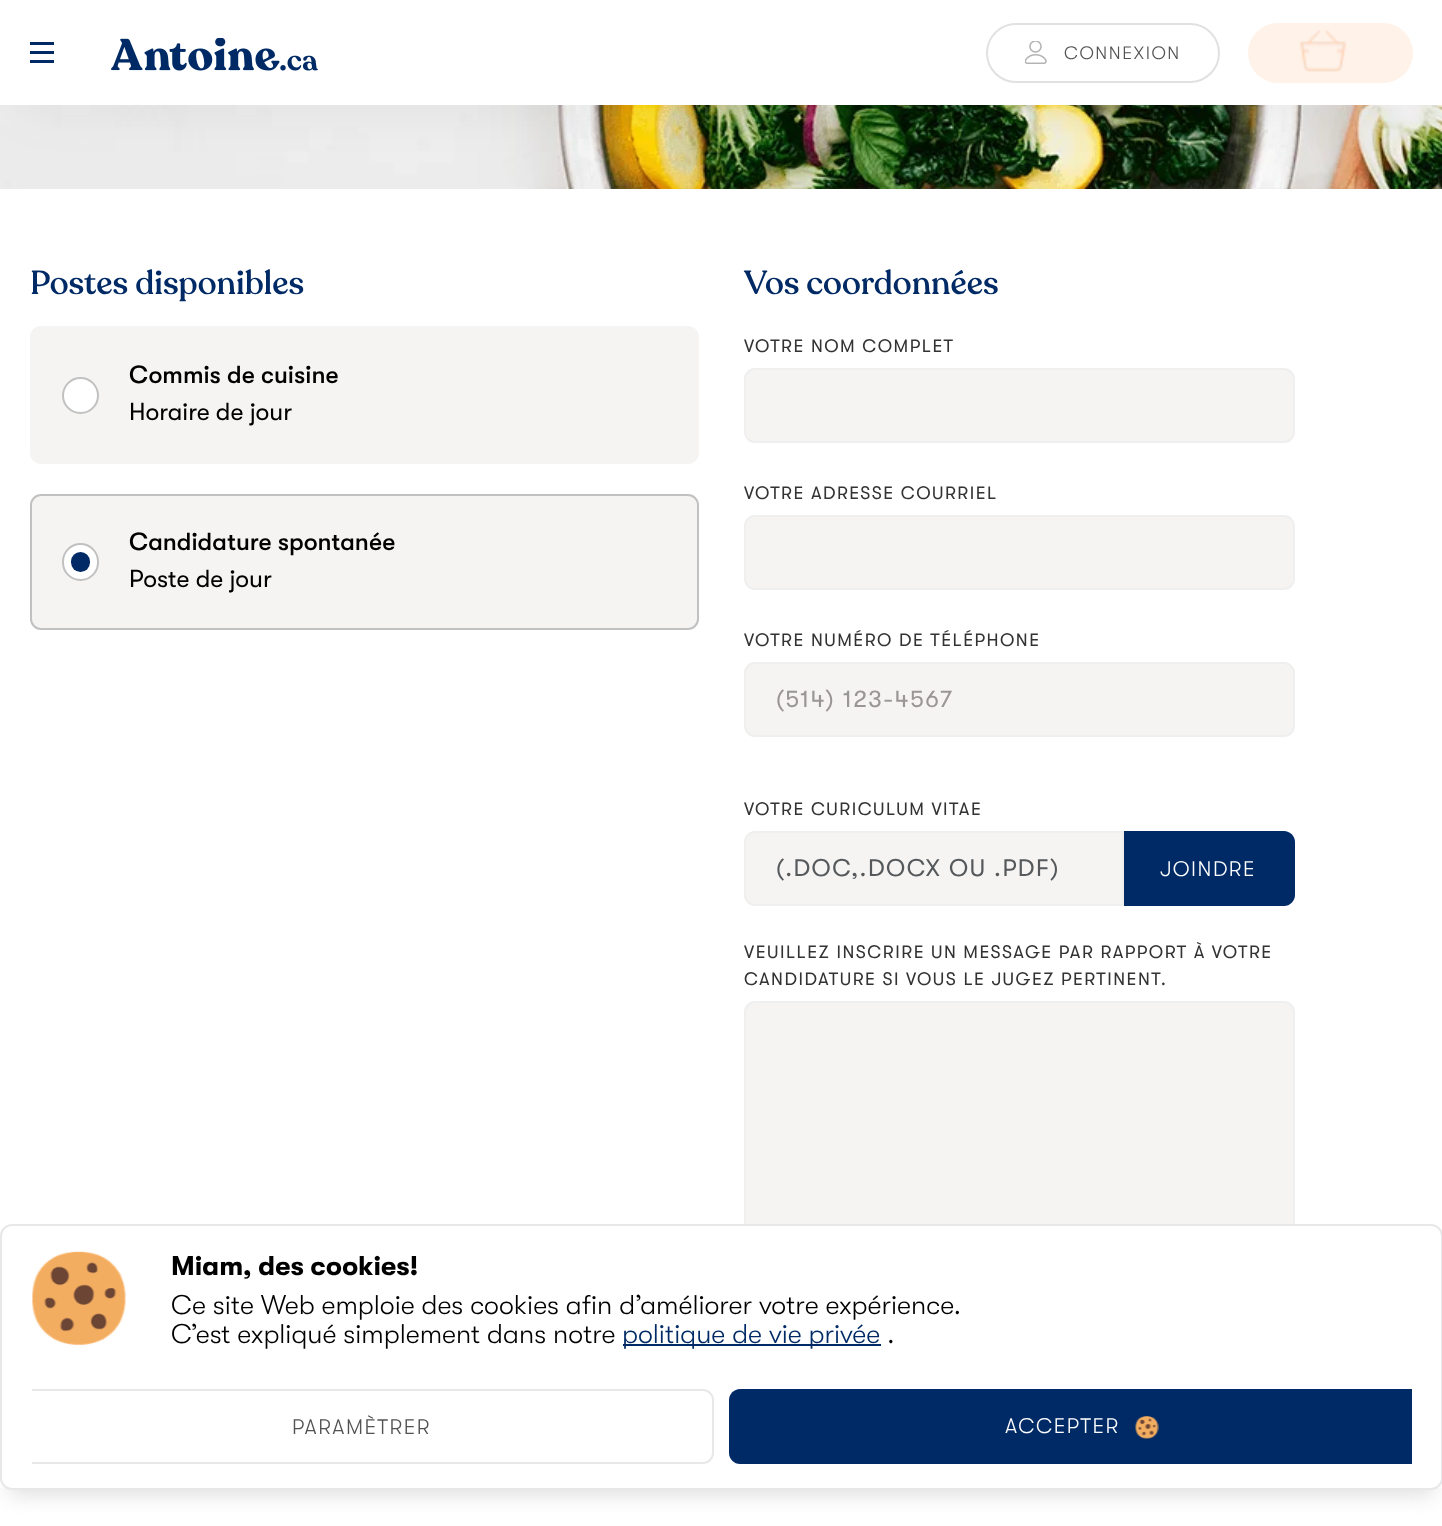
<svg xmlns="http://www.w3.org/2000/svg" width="1442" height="1526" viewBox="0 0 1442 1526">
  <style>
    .t1 { font: 300 18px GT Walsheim; letter-spacing: 1.5px; fill: #525252; }
    .t2 { font: 500 33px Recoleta; fill: #002a65; }
    .t3 { font: 500 24.75px GT Walsheim; fill: #000; }
    .t4 { font: 24.75px GT Walsheim; fill: #000; }
    .t5 { font: 18px GT Walsheim; letter-spacing: 1.5px; fill: #333; }
    .t6 { font: 24px GT Walsheim; letter-spacing: 1.5px; fill: #999695; }
    .t7 { font: 24px GT Walsheim; letter-spacing: 1.5px; fill: #56595b; }
    .t8 { font: 300 21px GT Walsheim; letter-spacing: 1.5px; fill: #fff; }
    .t9 { font: bold 27px GT Walsheim; fill: #000; }
    .t10 { font: 300 27px GT Walsheim; fill: #000; }
    .t11 { font: 300 27px GT Walsheim; fill: #002a65; }
    .t12 { font: 300 21px GT Walsheim; letter-spacing: 1.5px; fill: #525252; }
  </style>
  <defs>
    <clipPath id="clip1"><rect x="32" y="1227" width="1380" height="261"/></clipPath>
  </defs>
  <rect width="100%" height="100%" fill="#fff"/>
  <rect x="0" y="-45" width="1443" height="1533" fill="#c7c7c74d" filter="blur(15px)"/>
  <image x="0" y="105" width="1442" height="84" href="images/4.png"/>
  <rect x="20" y="47" width="1404" height="66" fill="#0000000d" filter="blur(23px)"/>
  <rect x="0" y="0" width="1442" height="105" fill="#fff"/>
  <rect x="30" y="42" width="24" height="3" fill="#002a65"/>
  <rect x="30" y="51" width="24" height="3" fill="#002a65"/>
  <rect x="30" y="60" width="24" height="3" fill="#002a65"/>
  <image x="111" y="38" width="207" height="33" href="images/1.png"/>
  <rect x="987" y="24" width="232" height="58" rx="29" fill="none" stroke="#e2e1df" stroke-width="2"/>
  <image x="1025" y="41" width="22" height="23" href="images/2.png"/>
  <text x="1064" y="59" class="t1">CONNEXION</text>
  <rect x="1248" y="23" width="165" height="60" rx="30" fill="#fff2e9"/>
  <image x="1299" y="30" width="47" height="42" href="images/3.png"/>
  <rect x="0" y="189" width="1442" height="1299" fill="#fff"/>
  <text x="30" y="294" class="t2">Postes disponibles</text>
  <rect x="31" y="327" width="667" height="136" rx="10" fill="#f5f4f2" stroke="#f5f4f2" stroke-width="2"/>
  <circle cx="80.5" cy="395.5" r="17.5" fill="#fff" stroke="#c1c1c1" stroke-width="2"/>
  <text x="129" y="383" class="t3">Commis de cuisine</text>
  <text x="129" y="420" class="t4">Horaire de jour</text>
  <rect x="31" y="495" width="667" height="134" rx="10" fill="#f5f4f2" stroke="#c1c1c1" stroke-width="2"/>
  <rect x="63" y="544" width="35" height="36" rx="17.5" fill="#fff" stroke="#c1c1c1" stroke-width="2"/>
  <rect x="71" y="552" width="19" height="20" rx="9.5" fill="#002a65"/>
  <text x="129" y="550" class="t3">Candidature spontanée</text>
  <text x="129" y="587" class="t4">Poste de jour</text>
  <text x="744" y="294" class="t2">Vos coordonnées</text>
  <text x="744" y="352" class="t5">VOTRE NOM COMPLET</text>
  <rect x="745" y="369" width="549" height="73" rx="10" fill="#f5f4f2" stroke="#efefef" stroke-width="2"/>
  <text x="744" y="499" class="t5">VOTRE ADRESSE COURRIEL</text>
  <rect x="745" y="516" width="549" height="73" rx="10" fill="#f5f4f2" stroke="#efefef" stroke-width="2"/>
  <text x="744" y="646" class="t5">VOTRE NUMÉRO DE TÉLÉPHONE</text>
  <rect x="745" y="663" width="549" height="73" rx="10" fill="#f5f4f2" stroke="#efefef" stroke-width="2"/>
  <text x="776" y="707" class="t6">(514) 123-4567</text>
  <text x="744" y="815" class="t5">VOTRE CURICULUM VITAE</text>
  <path d="M755 832H1123V905H755C749.5 905 745 900.5 745 895V842C745 836.5 749.5 832 755 832Z" fill="#f5f4f2" stroke="#efefef" stroke-width="2"/>
  <text x="776" y="876" class="t7">(.DOC,.DOCX OU .PDF)</text>
  <path d="M1124 831H1284C1290 831 1295 836 1295 842V895C1295 901 1290 906 1284 906H1124Z" fill="#002a65"/>
  <text x="1160" y="876" class="t8">JOINDRE</text>
  <text x="744" y="958" class="t5">VEUILLEZ INSCRIRE UN MESSAGE PAR RAPPORT À VOTRE</text>
  <text x="744" y="985" class="t5">CANDIDATURE SI VOUS LE JUGEZ PERTINENT.</text>
  <rect x="745" y="1002" width="549" height="298" rx="10" fill="#f5f4f2" stroke="#efefef" stroke-width="2"/>
  <rect x="12" y="1254" width="1419" height="242" fill="#00000014" filter="blur(9px)"/>
  <rect x="1" y="1225" width="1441" height="264" rx="11" fill="#fff" stroke="#e7e8e9" stroke-width="2"/>
  <image x="32" y="1251" width="94" height="95" href="images/5.png"/>
  <text x="171" y="1275" class="t9">Miam, des cookies!</text>
  <text x="171" y="1314" class="t10">Ce site Web emploie des cookies afin d’améliorer votre expérience.</text>
  <text x="171" y="1343" class="t10">C’est expliqué simplement dans notre</text>
  <rect x="623" y="1344" width="258" height="2" fill="#002a65"/>
  <text x="622" y="1343" class="t11">politique de vie privée</text>
  <text x="887" y="1343" class="t10">.</text>
  <g clip-path="url(#clip1)">
    <rect x="10" y="1390" width="703" height="73" rx="10" fill="none" stroke="#e7e8e9" stroke-width="2"/>
  </g>
  <text x="292" y="1434" class="t12">PARAMÈTRER</text>
  <path d="M740 1389H1412V1464H740C734 1464 729 1459 729 1453V1400C729 1394 734 1389 740 1389Z" fill="#002a65"/>
  <text x="1005" y="1433" class="t8">ACCEPTER</text>
  <image x="1135" y="1416" width="24" height="23" href="images/6.png"/>
</svg>
